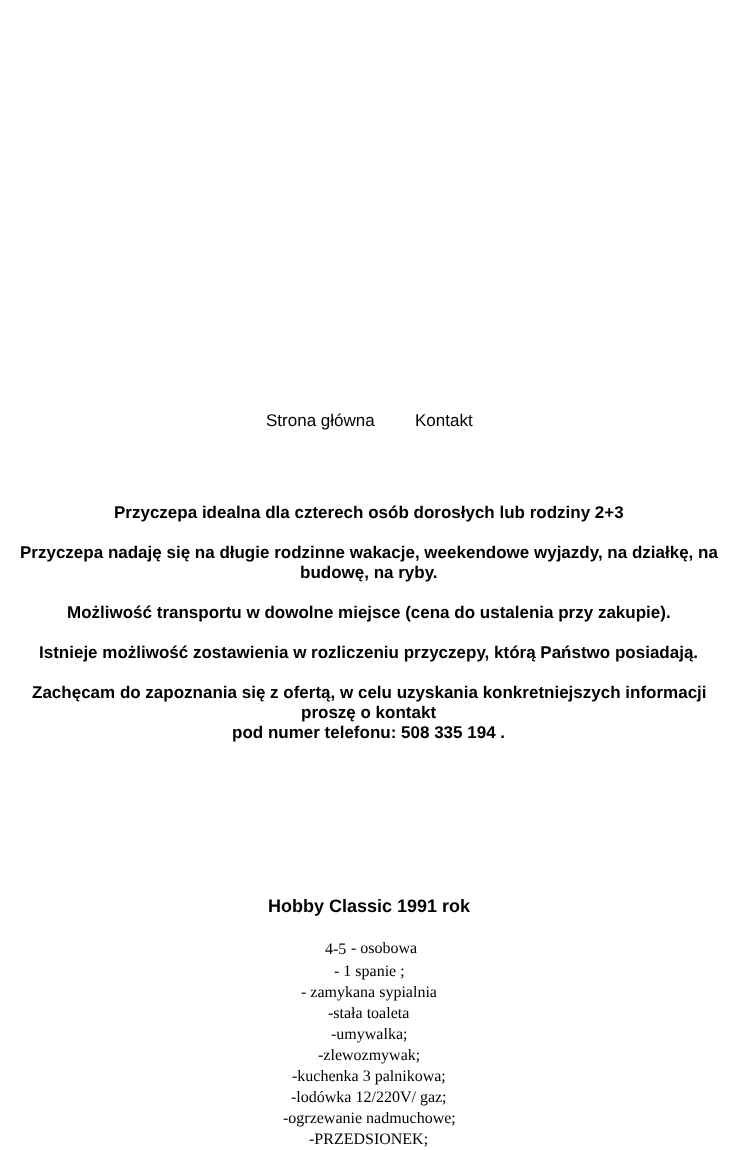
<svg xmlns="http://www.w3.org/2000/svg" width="738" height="1150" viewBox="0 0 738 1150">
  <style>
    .t1 { font: 17px Liberation Sans; fill: #000; }
    .t2 { font: bold 17px Liberation Sans; fill: #000; }
    .t3 { font: bold 18px Liberation Sans; fill: #000; }
    .t4 { font: 16px Liberation Serif; fill: #000; }
  </style>
  <rect width="100%" height="100%" fill="#fff"/>
  <text x="266" y="426" class="t1">Strona główna</text>
  <text x="415" y="426" class="t1">Kontakt</text>
  <text x="114" y="518" class="t2">Przyczepa idealna dla czterech osób dorosłych lub rodziny 2+3</text>
  <text x="20" y="558" class="t2">Przyczepa nadaję się na długie rodzinne wakacje, weekendowe wyjazdy, na działkę, na</text>
  <text x="300" y="578" class="t2">budowę, na ryby.</text>
  <text x="67" y="618" class="t2">Możliwość transportu w dowolne miejsce (cena do ustalenia przy zakupie).</text>
  <text x="39" y="658" class="t2">Istnieje możliwość zostawienia w rozliczeniu przyczepy, którą Państwo posiadają.</text>
  <text x="32" y="698" class="t2">Zachęcam do zapoznania się z ofertą, w celu uzyskania konkretniejszych informacji</text>
  <text x="301" y="718" class="t2">proszę o kontakt</text>
  <text x="232" y="738" class="t2">pod numer telefonu: 508 335 194 .</text>
  <text x="268" y="912" class="t3">Hobby Classic 1991 rok</text>
  <text x="325" y="954" class="t4">4-5</text>
  <text x="351" y="953" class="t4">- osobowa</text>
  <text x="334" y="976" class="t4">- 1 spanie ;</text>
  <text x="301" y="997" class="t4">- zamykana sypialnia</text>
  <text x="328" y="1018" class="t4">-stała toaleta</text>
  <text x="331" y="1039" class="t4">-umywalka;</text>
  <text x="318" y="1060" class="t4">-zlewozmywak;</text>
  <text x="292" y="1081" class="t4">-kuchenka 3 palnikowa;</text>
  <text x="291" y="1102" class="t4">-lodówka 12/220V/ gaz;</text>
  <text x="283" y="1123" class="t4">-ogrzewanie nadmuchowe;</text>
  <text x="309" y="1144" class="t4">-PRZEDSIONEK;</text>
</svg>
